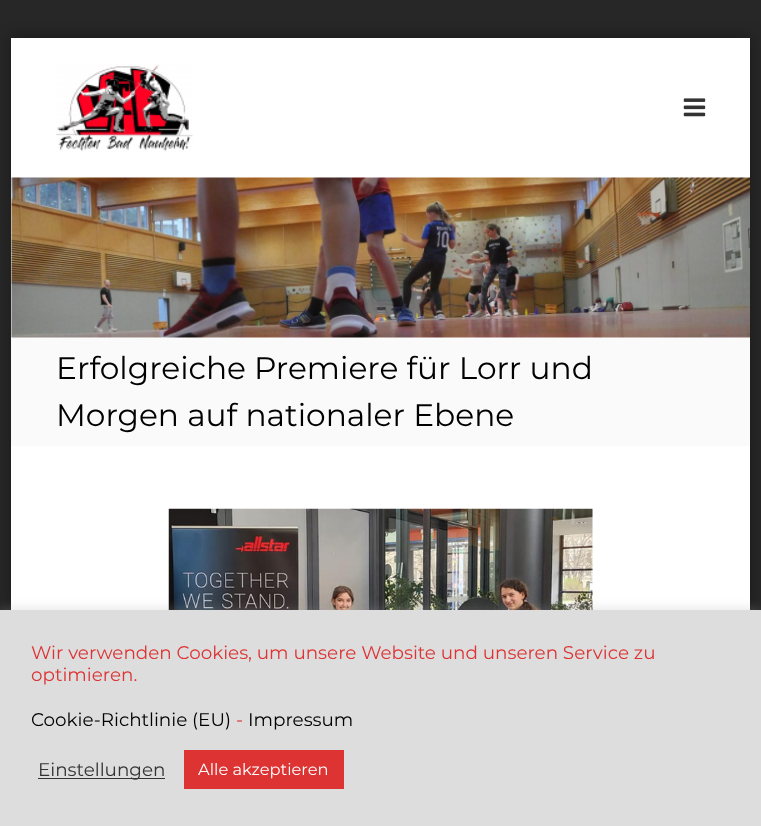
<svg xmlns="http://www.w3.org/2000/svg" width="761" height="826" viewBox="0 0 761 826">
  <style>
    .t1 { font: 31.25px Montserrat; fill: #000; }
    .t2 { font: 18.35px Montserrat; fill: #d33; }
    .t3 { font: 18.35px Montserrat; fill: #000; }
    .t4 { font: 18.35px Montserrat; fill: #333; }
    .t5 { font: 16.25px Montserrat; fill: #fff; }
  </style>
  <rect width="100%" height="100%" fill="#272727"/>
  <rect x="10" y="36" width="741" height="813" fill="#0000004d" filter="blur(7.5px)"/>
  <rect x="11" y="38" width="739" height="572" fill="#fff"/>
  <image x="56" y="64" width="137" height="88" href="images/1.png"/>
  <image x="683" y="98" width="23" height="19" href="images/2.png"/>
  <image x="11" y="177" width="739" height="161" href="images/3.png"/>
  <rect x="11" y="338" width="739" height="108" fill="#fafafa"/>
  <text x="56" y="379" class="t1">Erfolgreiche Premiere für Lorr und</text>
  <text x="56" y="426" class="t1">Morgen auf nationaler Ebene</text>
  <image x="168" y="508" width="425" height="102" href="images/4.png"/>
  <rect x="0" y="609" width="761" height="216" fill="#acabab4d" filter="blur(6px)"/>
  <rect x="0" y="610" width="761" height="216" fill="#ddd"/>
  <text x="31" y="659" class="t2">Wir verwenden Cookies, um unsere Website und unseren Service zu</text>
  <text x="31" y="681" class="t2">optimieren.</text>
  <text x="31" y="726" class="t3">Cookie-Richtlinie (EU)</text>
  <text x="236" y="726" class="t2">-</text>
  <text x="248" y="726" class="t3">Impressum</text>
  <rect x="38" y="778" width="127" height="1" fill="#333"/>
  <text x="38" y="776" class="t4">Einstellungen</text>
  <rect x="184" y="750" width="160" height="39" fill="#d33"/>
  <text x="198" y="775" class="t5">Alle akzeptieren</text>
</svg>
